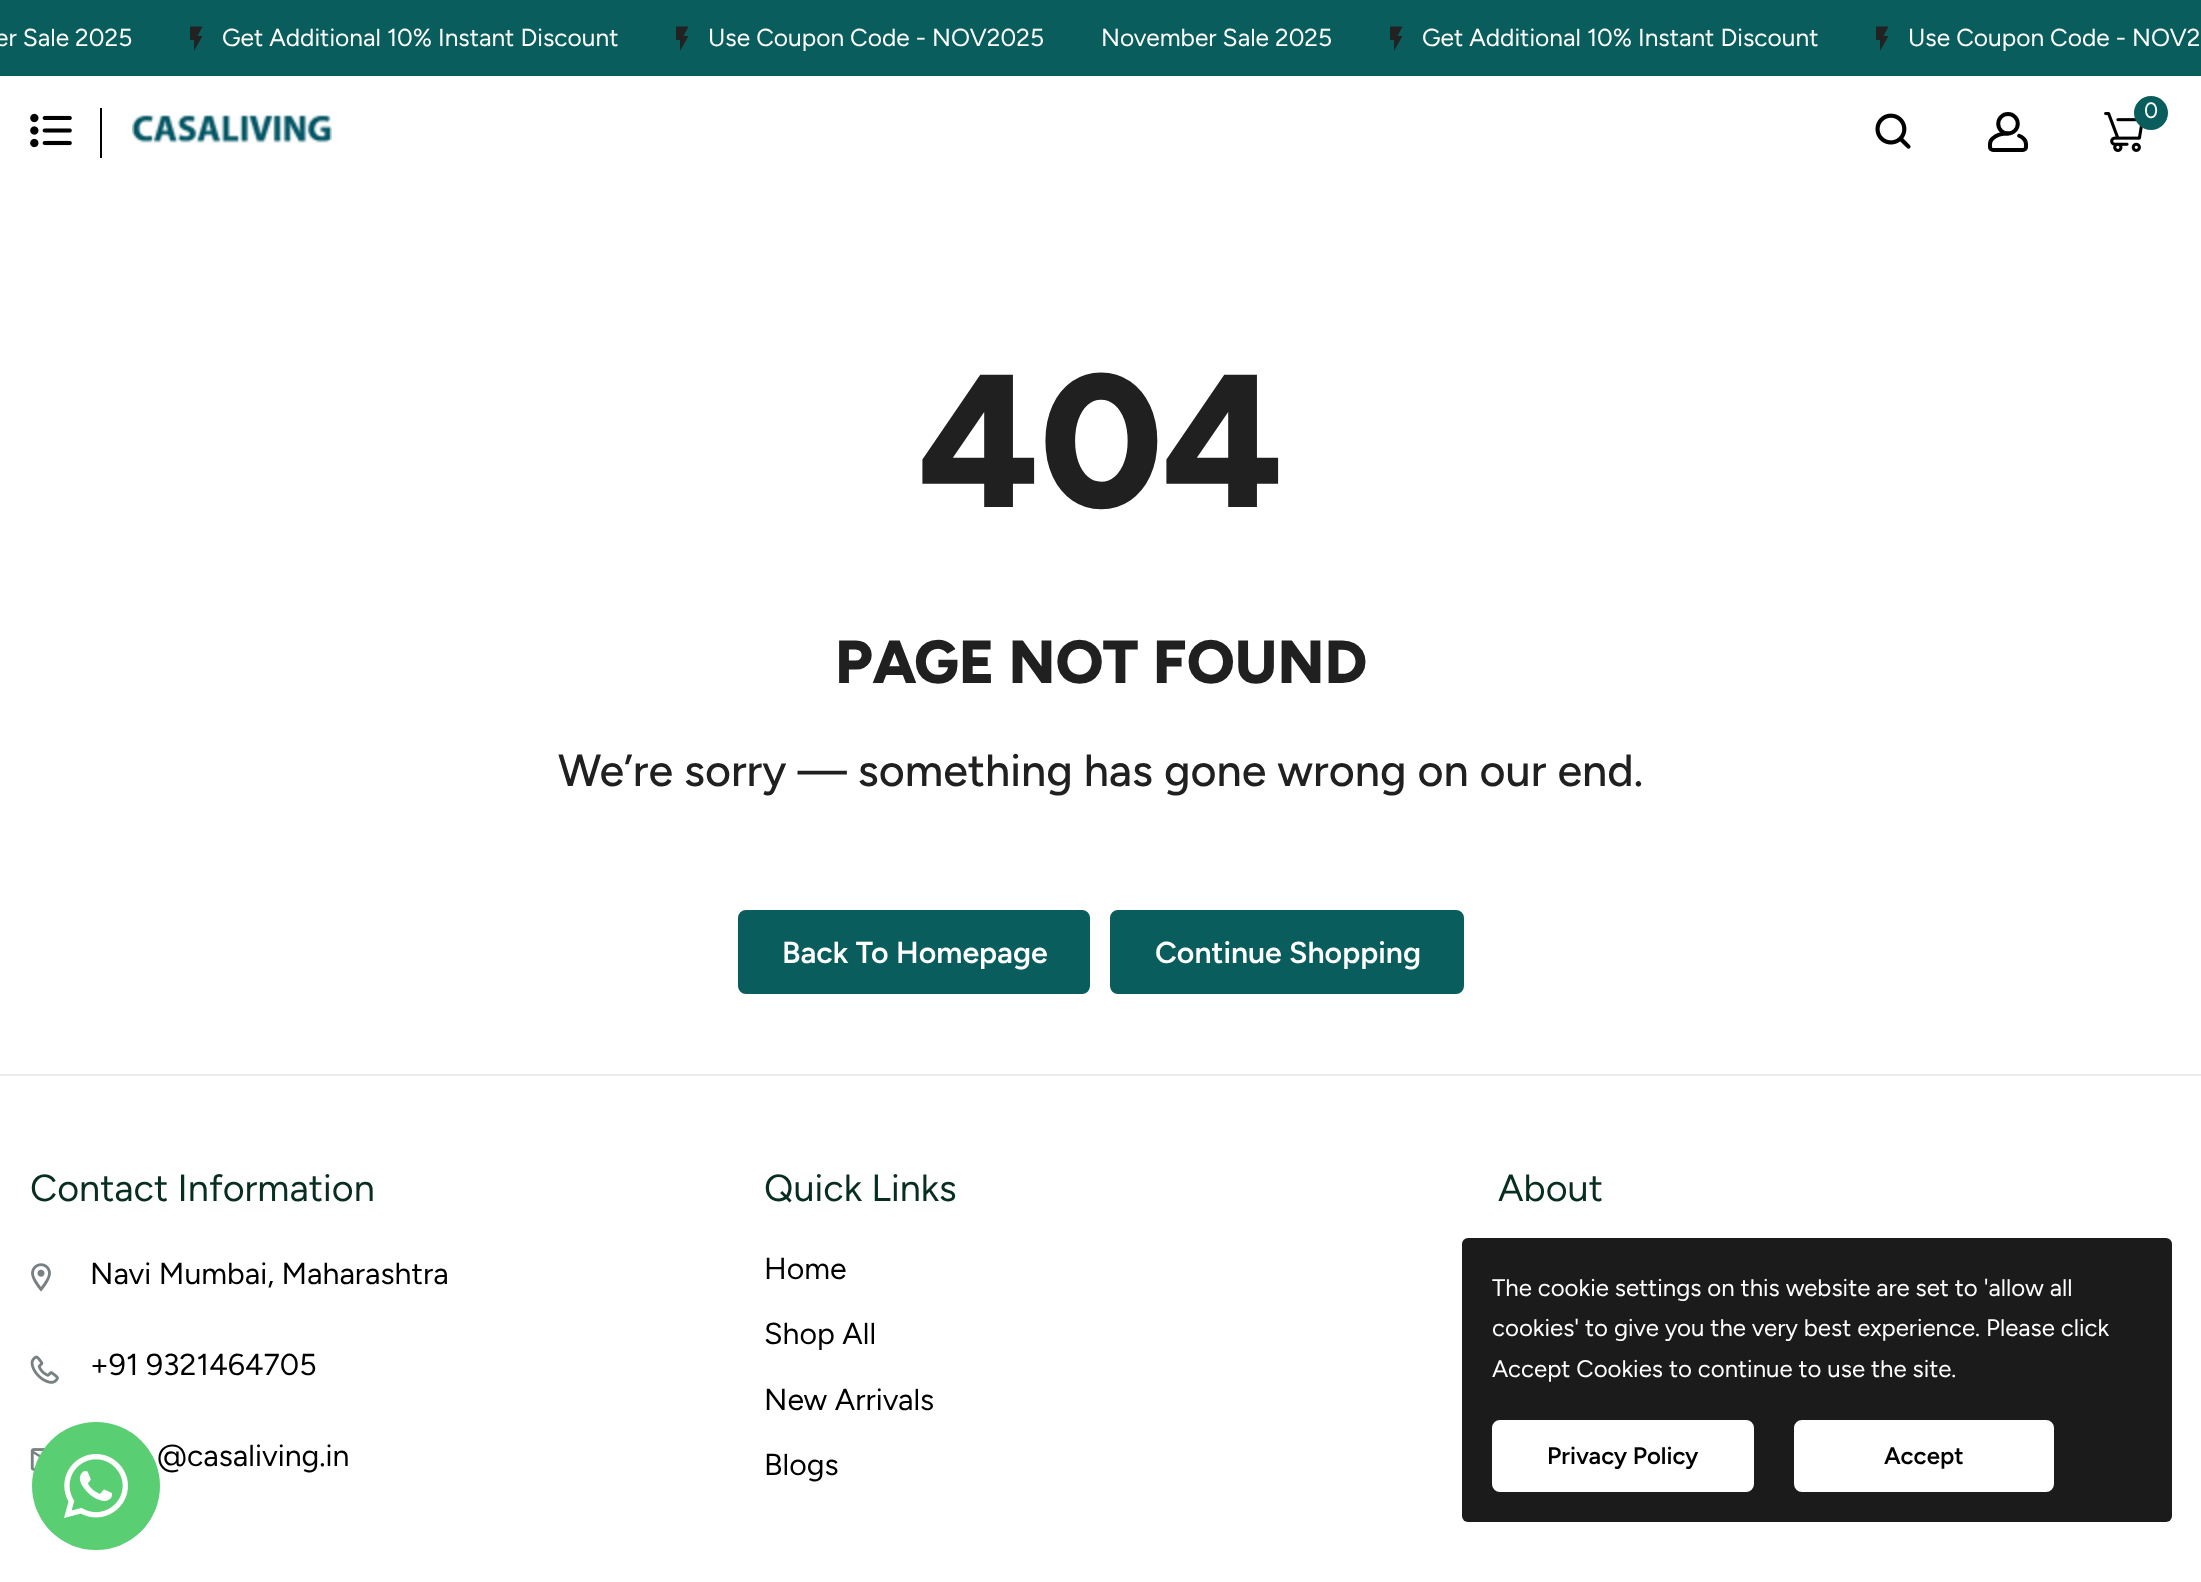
<svg xmlns="http://www.w3.org/2000/svg" width="2201" height="1582" viewBox="0 0 2201 1582">
  <style>
    .t1 { font: 24.5px Figtree; fill: #fff; }
    .t2 { font: 22px Figtree; fill: #fff; }
    .t3 { font: 800 189px Figtree; fill: #202020; }
    .t4 { font: 800 60.75px Figtree; fill: #202020; }
    .t5 { font: 500 44.9px Figtree; fill: #202020; }
    .t6 { font: 600 30.25px Figtree; fill: #fff; }
    .t7 { font: 37.75px Figtree; fill: #082e21; }
    .t8 { font: 30.25px Figtree; fill: #000; }
    .t9 { font: 24px Figtree; fill: #fff; }
    .t10 { font: 600 24px Figtree; fill: #000; }
  </style>
  <rect width="100%" height="100%" fill="#fff"/>
  <rect x="0" y="0" width="2201" height="76" fill="#0a5d5d"/>
  <text x="-5" y="46" class="t1">er Sale 2025</text>
  <path d="M190 26.5H202.5L197.5 36H202.5L194 51V40H190Z" fill="#222"/>
  <text x="222" y="46" class="t1">Get Additional 10% Instant Discount</text>
  <path d="M676 26.5H688.5L683.5 36H688.5L680 51V40H676Z" fill="#222"/>
  <text x="708" y="46" class="t1">Use Coupon Code - NOV2025</text>
  <text x="1101" y="46" class="t1">November Sale 2025</text>
  <path d="M1390 26.5H1402.5L1397.5 36H1402.5L1394 51V40H1390Z" fill="#222"/>
  <text x="1422" y="46" class="t1">Get Additional 10% Instant Discount</text>
  <path d="M1876 26.5H1888.5L1883.5 36H1888.5L1880 51V40H1876Z" fill="#222"/>
  <text x="1908" y="46" class="t1">Use Coupon Code - NOV2</text>
  <image x="30" y="113" width="42" height="35" href="images/1.png"/>
  <rect x="100" y="108" width="2" height="50" fill="#000"/>
  <image x="132" y="114" width="200" height="29" href="images/2.png"/>
  <image x="1875" y="113" width="36" height="36" href="images/3.png"/>
  <image x="1988" y="112" width="40" height="40" href="images/4.png"/>
  <image x="2104" y="112" width="39" height="40" href="images/5.png"/>
  <circle cx="2151" cy="113" r="17" fill="#0a5d5d"/>
  <text x="2144" y="118" class="t2">0</text>
  <text x="919" y="507" class="t3">404</text>
  <text x="835" y="683" class="t4">PAGE NOT FOUND</text>
  <text x="558" y="786" class="t5">We’re sorry — something has gone wrong on our end.</text>
  <rect x="740" y="912" width="348" height="80" rx="6" fill="#0a5d5d" stroke="#0a5d5d" stroke-width="4"/>
  <text x="782" y="963" class="t6">Back To Homepage</text>
  <rect x="1112" y="912" width="350" height="80" rx="6" fill="#0a5d5d" stroke="#0a5d5d" stroke-width="4"/>
  <text x="1155" y="963" class="t6">Continue Shopping</text>
  <rect x="0" y="1074" width="2201" height="2" fill="#ececec"/>
  <text x="30" y="1201" class="t7">Contact Information</text>
  <image x="31" y="1263" width="20" height="29" href="images/6.png"/>
  <text x="90" y="1284" class="t8">Navi Mumbai, Maharashtra</text>
  <image x="30" y="1355" width="29" height="29" href="images/7.png"/>
  <text x="90" y="1375" class="t8">+91 9321464705</text>
  <image x="30" y="1448" width="15" height="23" href="images/8.png"/>
  <text x="157" y="1466" class="t8">@casaliving.in</text>
  <text x="764" y="1201" class="t7">Quick Links</text>
  <text x="764" y="1279" class="t8">Home</text>
  <text x="764" y="1344" class="t8">Shop All</text>
  <text x="764" y="1410" class="t8">New Arrivals</text>
  <text x="764" y="1475" class="t8">Blogs</text>
  <text x="1498" y="1201" class="t7">About</text>
  <rect x="1462" y="1238" width="710" height="284" rx="6" fill="#1b1b1b"/>
  <text x="1492" y="1296" class="t9">The cookie settings on this website are set to 'allow all</text>
  <text x="1492" y="1336" class="t9">cookies' to give you the very best experience. Please click</text>
  <text x="1492" y="1377" class="t9">Accept Cookies to continue to use the site.</text>
  <rect x="1494" y="1422" width="258" height="68" rx="6" fill="#fff" stroke="#fff" stroke-width="4"/>
  <text x="1547" y="1464" class="t10">Privacy Policy</text>
  <rect x="1796" y="1422" width="256" height="68" rx="6" fill="#fff" stroke="#fff" stroke-width="4"/>
  <text x="1884" y="1464" class="t10">Accept</text>
  <circle cx="96" cy="1486" r="64" fill="#59ce72"/>
  <image x="64" y="1454" width="64" height="64" href="images/9.png"/>
</svg>
